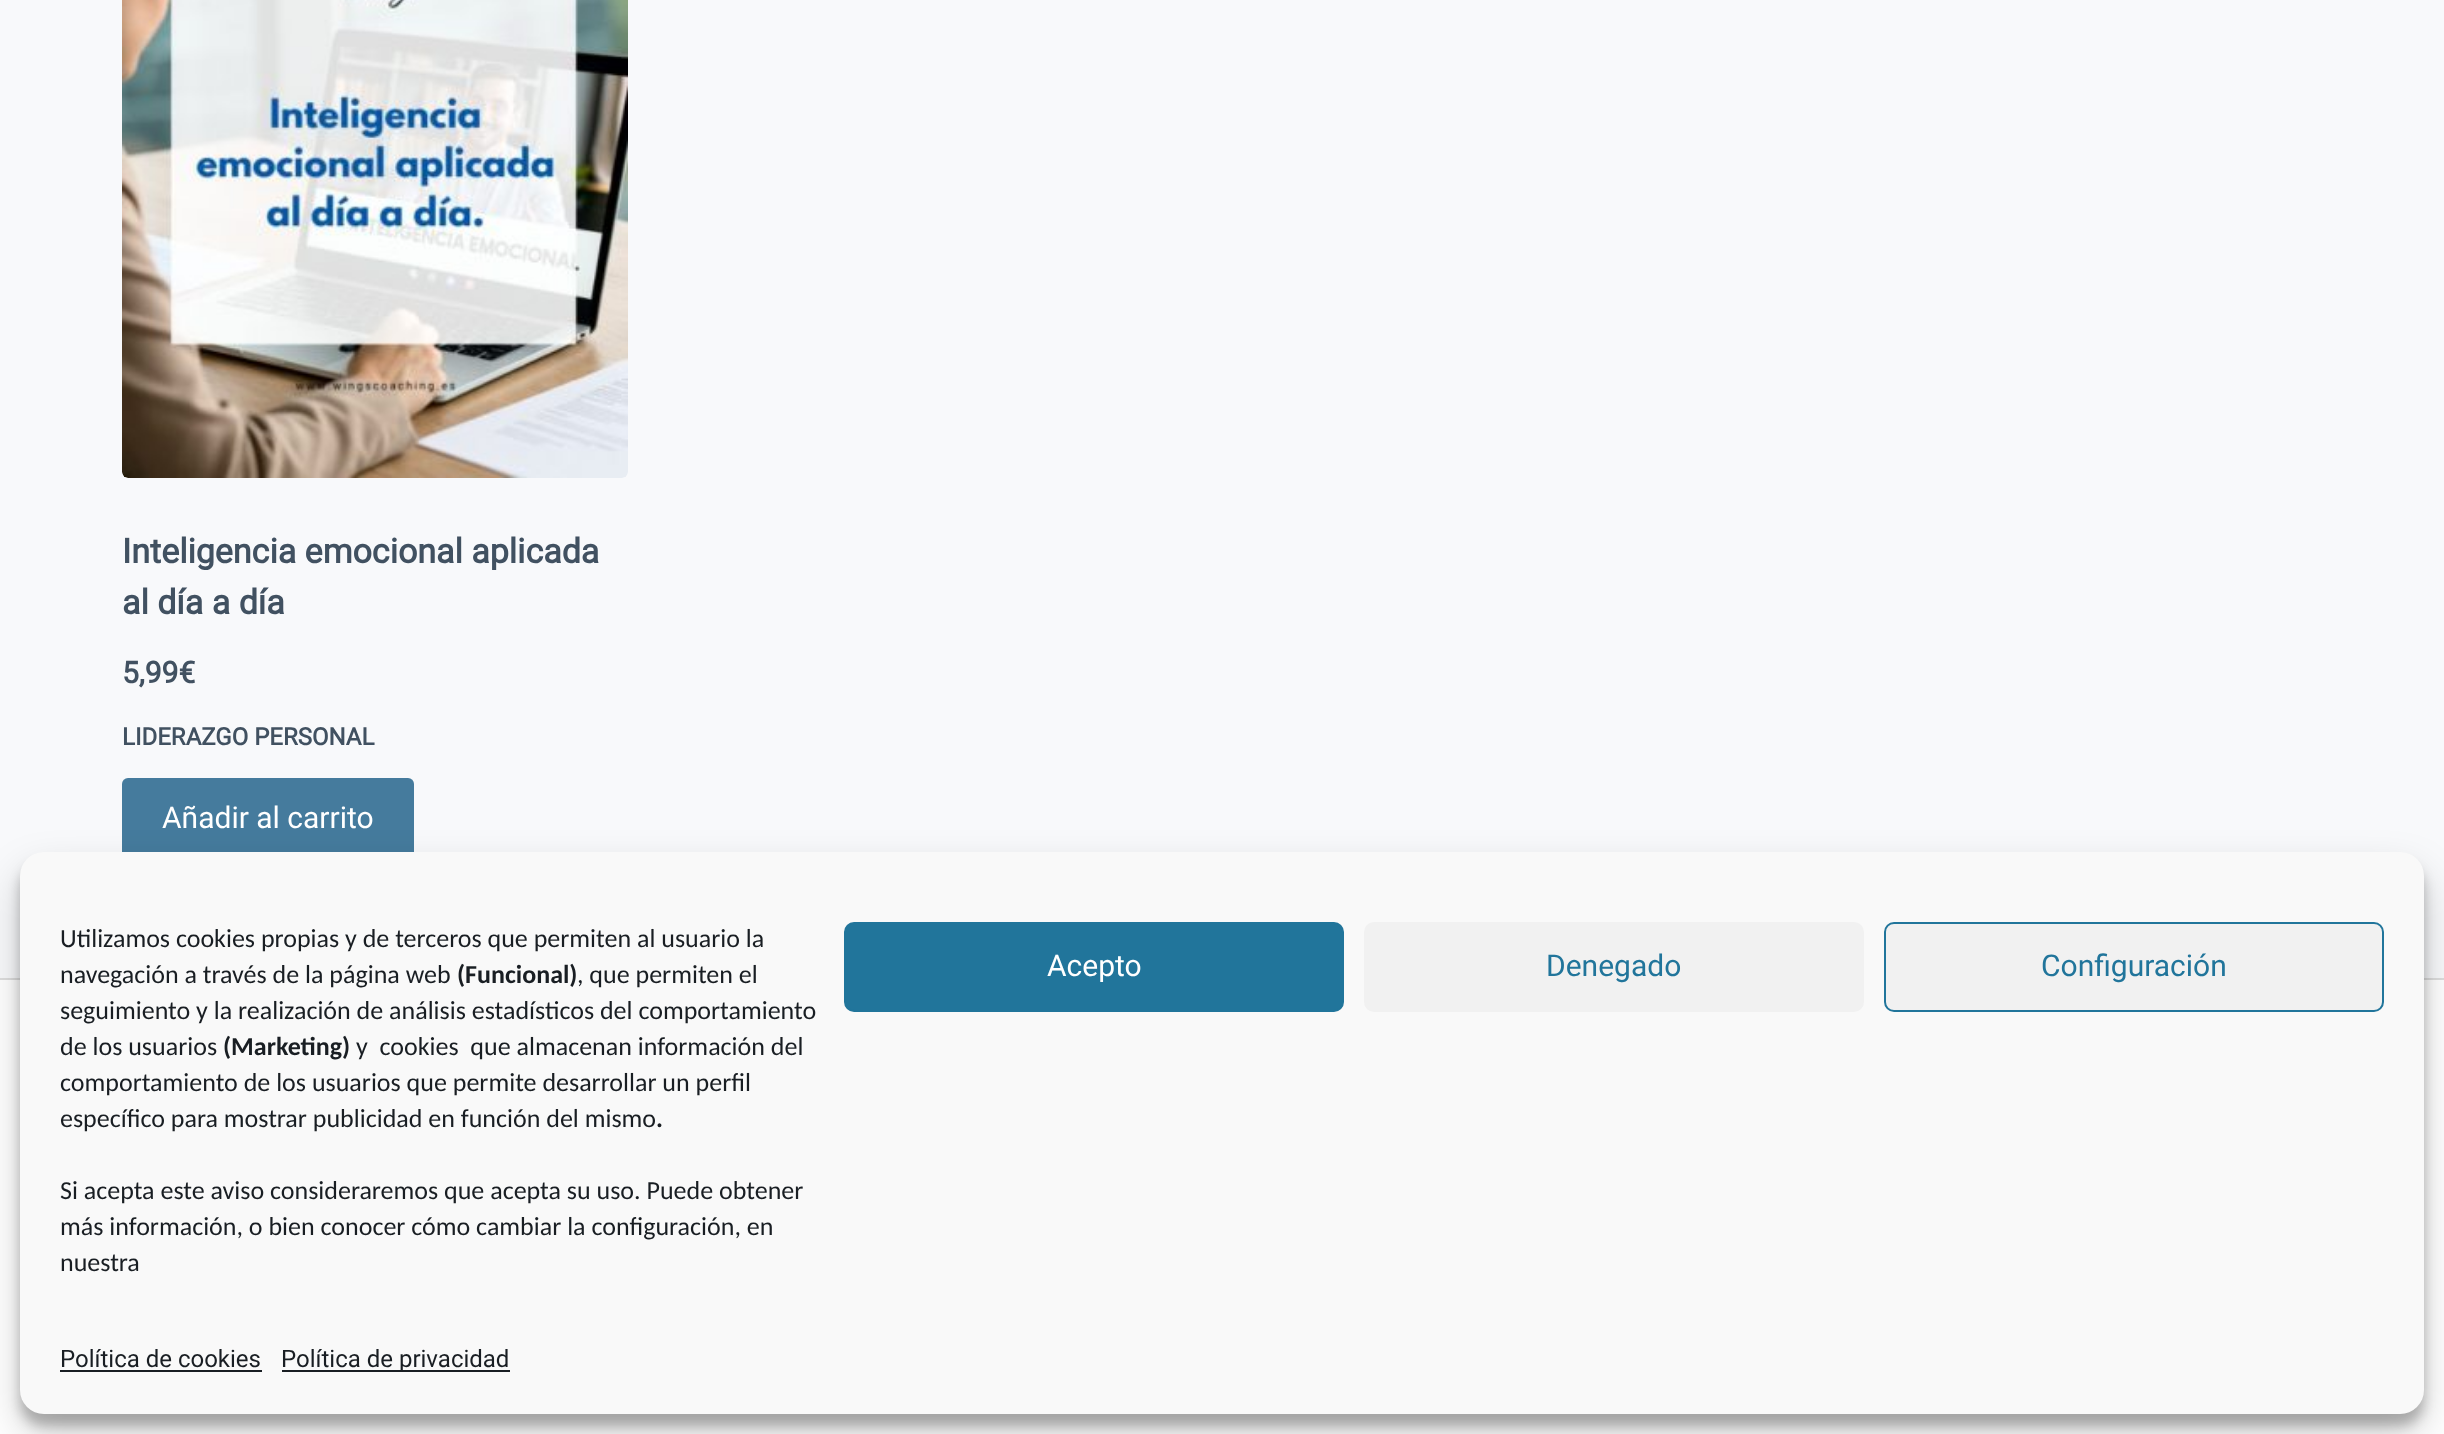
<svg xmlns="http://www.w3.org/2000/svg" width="2444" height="1434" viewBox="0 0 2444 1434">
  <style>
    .t1 { font: bold 34px Roboto; fill: #415161; }
    .t2 { font: bold 30px Roboto; fill: #415161; }
    .t3 { font: bold 24px Roboto; fill: #415161; }
    .t4 { font: 30px Roboto; fill: #fff; }
    .t5 { font: 26px Carlito; fill: #191e23; }
    .t6 { font: bold 26px Carlito; fill: #191e23; }
    .t7 { font: 30px Roboto; fill: #21759b; }
    .t8 { font: 24px Roboto; fill: #191e23; }
  </style>
  <rect width="100%" height="100%" fill="#f8f9fb"/>
  <image x="122" y="0" width="506" height="478" href="images/1.png"/>
  <text x="122" y="563" class="t1">Inteligencia emocional aplicada</text>
  <text x="122" y="614" class="t1">al día a día</text>
  <text x="122" y="683" class="t2">5,99€</text>
  <text x="122" y="745" class="t3">LIDERAZGO PERSONAL</text>
  <rect x="122" y="778" width="292" height="80" rx="6" fill="#457b9d"/>
  <text x="162" y="828" class="t4">Añadir al carrito</text>
  <rect x="0" y="980" width="2444" height="454" fill="#fff"/>
  <rect x="0" y="978" width="2444" height="2" fill="#ddd"/>
  <rect x="20" y="864" width="2404" height="562" rx="24" fill="#0000003b" filter="blur(6px)"/>
  <rect x="20" y="872" width="2404" height="562" rx="24" fill="#00000030" filter="blur(20px)"/>
  <rect x="20" y="852" width="2404" height="562" rx="24" fill="#f9f9f9"/>
  <text x="60" y="947" class="t5">Utilizamos cookies propias y de terceros que permiten al usuario la</text>
  <text x="60" y="983" class="t5">navegación a través de la página web</text>
  <text x="457" y="983" class="t6">(Funcional)</text>
  <text x="577" y="983" class="t5">, que permiten el</text>
  <text x="60" y="1019" class="t5">seguimiento y la realización de análisis estadísticos del comportamiento</text>
  <text x="60" y="1055" class="t5">de los usuarios</text>
  <text x="223" y="1055" class="t6">(Marketing)</text>
  <text x="356" y="1055" class="t5" xml:space="preserve">y  cookies  que almacenan información del</text>
  <text x="60" y="1091" class="t5">comportamiento de los usuarios que permite desarrollar un perfil</text>
  <text x="60" y="1127" class="t5">específico para mostrar publicidad en función del mismo</text>
  <text x="656" y="1127" class="t6">.</text>
  <text x="60" y="1199" class="t5">Si acepta este aviso consideraremos que acepta su uso. Puede obtener</text>
  <text x="60" y="1235" class="t5">más información, o bien conocer cómo cambiar la configuración, en</text>
  <text x="60" y="1271" class="t5">nuestra</text>
  <rect x="845" y="923" width="498" height="88" rx="9" fill="#21759b" stroke="#21759b" stroke-width="2"/>
  <text x="1047" y="976" class="t4">Acepto</text>
  <rect x="1364" y="922" width="500" height="90" rx="10" fill="#f1f1f1"/>
  <text x="1546" y="976" class="t7">Denegado</text>
  <rect x="1885" y="923" width="498" height="88" rx="9" fill="#f1f1f1" stroke="#21759b" stroke-width="2"/>
  <text x="2041" y="976" class="t7">Configuración</text>
  <text x="60" y="1367" class="t8">Política de cookies</text>
  <rect x="60" y="1370" width="202" height="2" fill="#191e23"/>
  <rect x="282" y="1370" width="228" height="2" fill="#191e23"/>
  <text x="281" y="1367" class="t8">Política de privacidad</text>
</svg>
